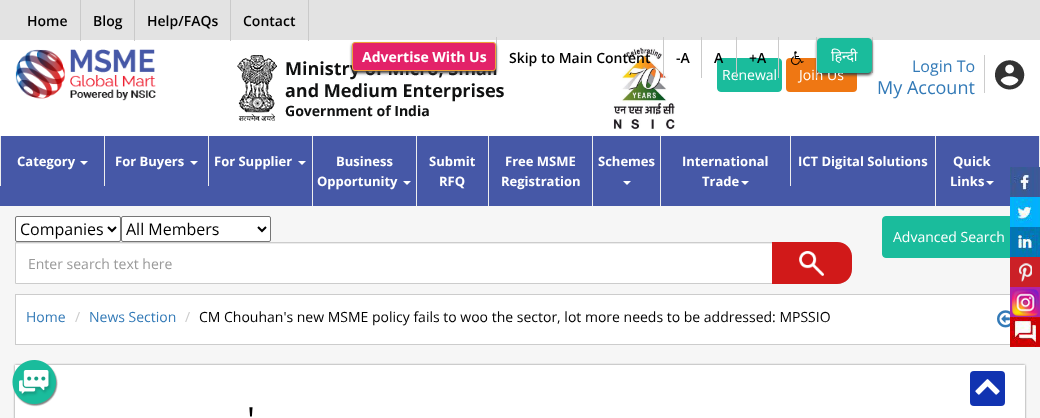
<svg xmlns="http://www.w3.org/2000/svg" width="1040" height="418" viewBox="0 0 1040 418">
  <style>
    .t1 { font: 600 14px Open Sans; fill: #000; }
    .t2 { font: bold 14px Open Sans; fill: #fff; }
    .t3 { font: 14px Open Sans; fill: #fff; }
    .t4 { font: 14px Noto Sans; fill: #fff; }
    .t5 { font: 16px Open Sans; fill: #337ab7; }
    .t6 { font: 18px Open Sans; fill: #337ab7; }
    .t7 { font: bold 13px Open Sans; fill: #fff; }
    .t8 { font: 16px Open Sans; fill: #000; }
    .t9 { font: 14px Open Sans; fill: #999; }
    .t10 { font: 14px Open Sans; fill: #337ab7; }
    .t11 { font: 14px Open Sans; fill: #ccc; }
    .t12 { font: 14px Open Sans; fill: #000; }
    .t13 { font: 36px Open Sans; fill: #000; }
  </style>
  <rect width="100%" height="100%" fill="#f6f6f6"/>
  <rect x="0" y="0" width="1040" height="40" fill="#e3e3e3"/>
  <rect x="0" y="40" width="1040" height="96" fill="#fff"/>
  <rect x="80" y="0" width="1" height="41" fill="#cacaca"/>
  <text x="27" y="26" class="t1">Home</text>
  <rect x="134" y="0" width="1" height="41" fill="#cacaca"/>
  <text x="93" y="26" class="t1">Blog</text>
  <rect x="230" y="0" width="1" height="41" fill="#cacaca"/>
  <text x="147" y="26" class="t1">Help/FAQs</text>
  <rect x="308" y="0" width="1" height="41" fill="#cacaca"/>
  <text x="243" y="26" class="t1">Contact</text>
  <image x="237" y="55" width="267" height="66" href="images/3.png"/>
  <rect x="496" y="37" width="1" height="34" fill="#cacaca"/>
  <rect x="352" y="44" width="144" height="29" rx="3" fill="#3e3d3d" filter="blur(1.5px)"/>
  <rect x="352.5" y="42.5" width="143" height="28" rx="2.5" fill="#e32269" stroke="#eea236"/>
  <text x="362" y="62" class="t2">Advertise With Us</text>
  <image x="613" y="47" width="62" height="83" href="images/4.png"/>
  <rect x="663" y="37" width="1" height="41" fill="#cacaca"/>
  <text x="509" y="63" class="t1">Skip to Main Content</text>
  <rect x="701" y="37" width="1" height="41" fill="#cacaca"/>
  <text x="676" y="63" class="t1">-A</text>
  <rect x="717.5" y="58.5" width="64" height="33" rx="3.5" fill="#1abc9c" stroke="#1abc9c"/>
  <text x="722" y="80" class="t3">Renewal</text>
  <rect x="736" y="37" width="1" height="41" fill="#cacaca"/>
  <text x="714" y="63" class="t1">A</text>
  <rect x="778" y="37" width="1" height="41" fill="#cacaca"/>
  <text x="749" y="63" class="t1">+A</text>
  <rect x="872" y="37" width="1" height="36" fill="#cacaca"/>
  <rect x="786" y="58" width="71" height="34" rx="4" fill="#ef7713"/>
  <rect x="817" y="40" width="55" height="35" rx="4" fill="#3e3d3d" filter="blur(1.5px)"/>
  <text x="799" y="80" class="t3">Join Us</text>
  <rect x="816" y="37" width="1" height="41" fill="#cacaca"/>
  <image x="791" y="51" width="13" height="14" href="images/1.png"/>
  <rect x="817.5" y="38.5" width="54" height="34" rx="3.5" fill="#1abc9c" stroke="#1abc9c"/>
  <text x="831" y="61" class="t4">हिन्दी</text>
  <image x="15" y="49" width="141" height="52" href="images/2.png"/>
  <text x="912" y="72" class="t5">Login To</text>
  <text x="877" y="94" class="t6">My Account</text>
  <rect x="984" y="55" width="1" height="38" fill="#ccc"/>
  <image x="995" y="60" width="30" height="30" href="images/5.png"/>
  <rect x="0" y="136" width="1039" height="70" fill="#4658a7"/>
  <rect x="1039" y="136" width="1" height="31" fill="#eee"/>
  <rect x="0" y="136" width="1" height="50" fill="#eee"/>
  <text x="17" y="166" class="t7">Category</text>
  <path d="M80 161H88L84 165Z" fill="#fff"/>
  <rect x="104" y="136" width="1" height="50" fill="#eee"/>
  <text x="115" y="166" class="t7">For Buyers</text>
  <path d="M190 161H198L194 165Z" fill="#fff"/>
  <rect x="208" y="136" width="1" height="50" fill="#eee"/>
  <text x="214" y="166" class="t7">For Supplier</text>
  <path d="M298 161H306L302 165Z" fill="#fff"/>
  <rect x="312" y="136" width="1" height="70" fill="#eee"/>
  <text x="336" y="166" class="t7">Business</text>
  <text x="317" y="186" class="t7">Opportunity</text>
  <path d="M403 181H411L407 185Z" fill="#fff"/>
  <rect x="416" y="136" width="1" height="70" fill="#eee"/>
  <text x="429" y="166" class="t7">Submit</text>
  <text x="439" y="186" class="t7">RFQ</text>
  <rect x="488" y="136" width="1" height="70" fill="#eee"/>
  <text x="505" y="166" class="t7">Free MSME</text>
  <text x="501" y="186" class="t7">Registration</text>
  <rect x="592" y="136" width="1" height="70" fill="#eee"/>
  <text x="598" y="166" class="t7">Schemes</text>
  <path d="M623 181H631L627 185Z" fill="#fff"/>
  <rect x="660" y="136" width="1" height="70" fill="#eee"/>
  <text x="682" y="166" class="t7">International</text>
  <text x="702" y="186" class="t7">Trade</text>
  <path d="M741 181H749L745 185Z" fill="#fff"/>
  <rect x="790" y="136" width="1" height="50" fill="#eee"/>
  <text x="798" y="166" class="t7">ICT Digital Solutions</text>
  <rect x="935" y="136" width="1" height="70" fill="#eee"/>
  <text x="953" y="166" class="t7">Quick</text>
  <text x="950" y="186" class="t7">Links</text>
  <path d="M986 181H994L990 185Z" fill="#fff"/>
  <image x="1010" y="167" width="30" height="30" href="images/6.png"/>
  <rect x="882.5" y="216.5" width="142" height="41" rx="3.5" fill="#1abc9c" stroke="#1abc9c"/>
  <rect x="1010" y="197" width="2" height="30" fill="#01b1fd"/>
  <image x="1012" y="197" width="28" height="30" href="images/7.png"/>
  <image x="1010" y="227" width="30" height="30" href="images/8.png"/>
  <rect x="1010" y="257" width="30" height="30" fill="#cb2027"/>
  <image x="1019" y="263" width="13" height="19" href="images/9.png"/>
  <rect x="15" y="294" width="1010" height="51" fill="#00000066" filter="blur(0.5px)"/>
  <rect x="16" y="295" width="994" height="49" fill="#fff"/>
  <rect x="15.5" y="294.5" width="1009" height="50" fill="none" stroke="#ccc"/>
  <rect x="1010" y="287" width="30" height="30" fill="#b023a7"/>
  <image x="1012" y="289" width="27" height="27" href="images/10.png"/>
  <image x="1010" y="317" width="30" height="30" href="images/11.png"/>
  <rect x="15.5" y="216.5" width="105" height="25" rx="1.5" fill="#fff" stroke="#767676"/>
  <path d="M108 227L112 231L116 227" fill="none" stroke="#000" stroke-width="2"/>
  <text x="20" y="235" class="t8">Companies</text>
  <rect x="121.5" y="216.5" width="149" height="25" rx="1.5" fill="#fff" stroke="#767676"/>
  <path d="M258 227L262 231L266 227" fill="none" stroke="#000" stroke-width="2"/>
  <text x="126" y="235" class="t8">All Members</text>
  <path d="M15 242H837C845.5 242 852 248.5 852 257V269C852 277.5 845.5 284 837 284H15Z" fill="#fff"/>
  <path d="M16 244H837C845 244 851 250 851 258C851 250 845 243 837 243H16Z" fill="#ececec"/>
  <path d="M15.5 242.5H837C845 242.5 851.5 249 851.5 257V269C851.5 277 845 283.5 837 283.5H15.5Z" fill="none" stroke="#ccc"/>
  <text x="28" y="269" class="t9">Enter search text here</text>
  <path d="M772 242H837C845.5 242 852 248.5 852 257V269C852 277.5 845.5 284 837 284H772Z" fill="#d11919"/>
  <image x="799" y="251" width="25" height="25" href="images/12.png"/>
  <text x="893" y="242" class="t3">Advanced Search</text>
  <text x="26" y="322" class="t10">Home</text>
  <text x="75" y="322" class="t11">/</text>
  <text x="89" y="322" class="t10">News Section</text>
  <text x="185" y="322" class="t11">/</text>
  <text x="199" y="322" class="t12">CM Chouhan's new MSME policy fails to woo the sector, lot more needs to be addressed: MPSSIO</text>
  <image x="997" y="310" width="13" height="18" href="images/13.png"/>
  <rect x="15" y="365" width="1010" height="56" fill="#00000080" filter="blur(1px)"/>
  <rect x="15" y="365" width="1010" height="53" fill="#fff"/>
  <text x="247" y="433" class="t13">'</text>
  <image x="12" y="360" width="46" height="47" href="images/14.png"/>
  <rect x="970" y="371" width="35" height="35" rx="4" fill="#1133b1"/>
  <image x="975" y="379" width="25" height="16" href="images/15.png"/>
</svg>
